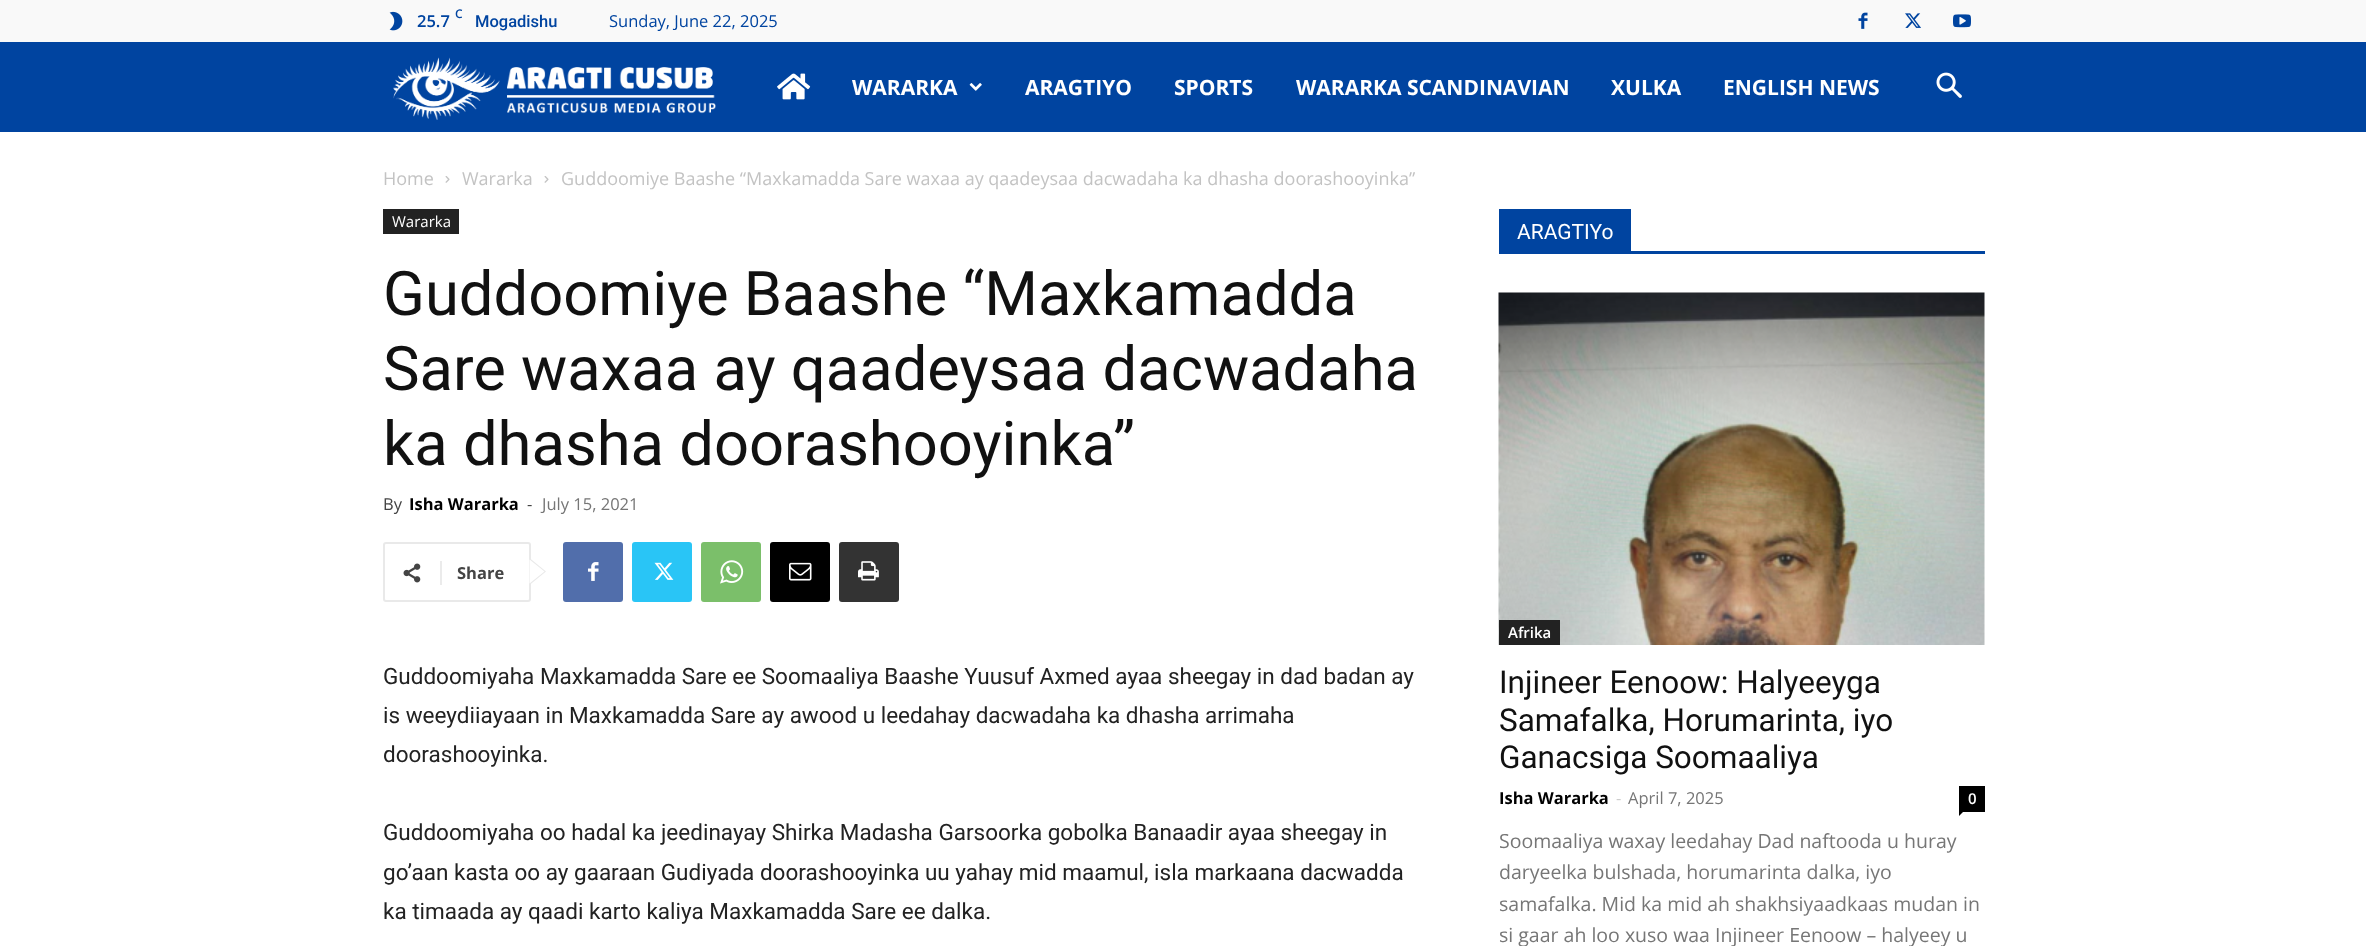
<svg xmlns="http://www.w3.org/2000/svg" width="2366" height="946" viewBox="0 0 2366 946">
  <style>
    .t1 { font: 600 12px Open Sans; fill: #0044a0; }
    .t2 { font: 600 16.5px Open Sans; fill: #0044a0; }
    .t3 { font: 500 16.5px Roboto; fill: #0044a0; }
    .t4 { font: 16.5px Open Sans; fill: #0044a0; }
    .t5 { font: bold 21px Open Sans; fill: #fff; }
    .t6 { font: 18px Open Sans; fill: #c3c3c3; }
    .t7 { font: 15px Open Sans; fill: #fff; }
    .t8 { font: 61.5px Roboto; fill: #111; }
    .t9 { font: 16.5px Open Sans; fill: #444; }
    .t10 { font: bold 16.5px Open Sans; fill: #000; }
    .t11 { font: 16.5px Open Sans; fill: #767676; }
    .t12 { font: bold 16.5px Open Sans; fill: #444; }
    .t13 { font: 22.5px Roboto; fill: #222; }
    .t14 { font: 21px Roboto; fill: #fff; }
    .t15 { font: 600 15px Open Sans; fill: #fff; }
    .t16 { font: 31.5px Roboto; fill: #111; }
    .t17 { font: 16.5px Open Sans; fill: #ccc; }
    .t18 { font: 19.5px Open Sans; fill: #767676; }
  </style>
  <rect width="100%" height="100%" fill="#fff"/>
  <rect x="0" y="0" width="2366" height="42" fill="#f9f9f9"/>
  <image x="389" y="11" width="14" height="20" href="images/1.png"/>
  <text x="455" y="18" class="t1">C</text>
  <text x="417" y="27" class="t2">25.7</text>
  <text x="475" y="27" class="t3">Mogadishu</text>
  <text x="609" y="27" class="t4">Sunday, June 22, 2025</text>
  <image x="1858" y="12" width="10" height="17" href="images/2.png"/>
  <image x="1905" y="13" width="16" height="15" href="images/3.png"/>
  <image x="1953" y="14" width="18" height="14" href="images/4.png"/>
  <rect x="0" y="42" width="2366" height="90" fill="#0044a0"/>
  <image x="393" y="57" width="323" height="63" href="images/5.png"/>
  <image x="777" y="73" width="34" height="27" href="images/6.png"/>
  <text x="852" y="95" class="t5">WARARKA</text>
  <image x="969" y="83" width="13" height="8" href="images/7.png"/>
  <text x="1025" y="95" class="t5">ARAGTIYO</text>
  <text x="1174" y="95" class="t5">SPORTS</text>
  <text x="1296" y="95" class="t5">WARARKA SCANDINAVIAN</text>
  <text x="1611" y="95" class="t5">XULKA</text>
  <text x="1723" y="95" class="t5">ENGLISH NEWS</text>
  <image x="1936" y="72" width="26" height="26" href="images/8.png"/>
  <text x="383" y="185" class="t6">Home</text>
  <image x="445" y="176" width="5" height="7" href="images/9.png"/>
  <text x="462" y="185" class="t6">Wararka</text>
  <image x="544" y="176" width="5" height="7" href="images/9.png"/>
  <text x="561" y="185" class="t6">Guddoomiye Baashe “Maxkamadda Sare waxaa ay qaadeysaa dacwadaha ka dhasha doorashooyinka”</text>
  <rect x="383" y="209" width="76" height="25" fill="#222"/>
  <text x="392" y="227" class="t7">Wararka</text>
  <text x="383" y="315" class="t8">Guddoomiye Baashe “Maxkamadda</text>
  <text x="383" y="390" class="t8">Sare waxaa ay qaadeysaa dacwadaha</text>
  <text x="383" y="465" class="t8">ka dhasha doorashooyinka”</text>
  <text x="383" y="510" class="t9">By</text>
  <text x="409" y="510" class="t10">Isha Wararka</text>
  <text x="527" y="510" class="t9">-</text>
  <text x="542" y="510" class="t11">July 15, 2021</text>
  <rect x="384" y="543" width="146" height="58" rx="2" fill="none" stroke="#e9e9e9" stroke-width="2"/>
  <path d="M529.5 585V558L546 571.5Z" fill="#e9e9e9"/>
  <image x="403" y="563" width="18" height="20" href="images/10.png"/>
  <rect x="440" y="561" width="2" height="24" fill="#ebebeb"/>
  <text x="457" y="579" class="t12">Share</text>
  <path d="M529.5 583.5V559.5L544.5 571.5Z" fill="#fff"/>
  <rect x="563" y="542" width="60" height="60" rx="3" fill="#516eab"/>
  <image x="588" y="562" width="11" height="19" href="images/11.png"/>
  <rect x="632" y="542" width="60" height="60" rx="3" fill="#29c5f6"/>
  <image x="654" y="562" width="20" height="18" href="images/12.png"/>
  <rect x="701" y="542" width="60" height="60" rx="3" fill="#7bbf6a"/>
  <image x="720" y="560" width="24" height="24" href="images/13.png"/>
  <rect x="770" y="542" width="60" height="60" rx="3" fill="#000"/>
  <image x="789" y="562" width="23" height="19" href="images/14.png"/>
  <rect x="839" y="542" width="60" height="60" rx="3" fill="#333"/>
  <image x="858" y="561" width="21" height="20" href="images/15.png"/>
  <text x="383" y="684" class="t13">Guddoomiyaha Maxkamadda Sare ee Soomaaliya Baashe Yuusuf Axmed ayaa sheegay in dad badan ay</text>
  <text x="383" y="723" class="t13">is weeydiiayaan in Maxkamadda Sare ay awood u leedahay dacwadaha ka dhasha arrimaha</text>
  <text x="383" y="762" class="t13">doorashooyinka.</text>
  <text x="383" y="840" class="t13">Guddoomiyaha oo hadal ka jeedinayay Shirka Madasha Garsoorka gobolka Banaadir ayaa sheegay in</text>
  <text x="383" y="880" class="t13">go’aan kasta oo ay gaaraan Gudiyada doorashooyinka uu yahay mid maamul, isla markaana dacwadda</text>
  <text x="383" y="919" class="t13">ka timaada ay qaadi karto kaliya Maxkamadda Sare ee dalka.</text>
  <rect x="1499" y="251" width="486" height="3" fill="#0044a0"/>
  <rect x="1499" y="209" width="132" height="42" fill="#0044a0"/>
  <text x="1517" y="239" class="t14">ARAGTIYo</text>
  <image x="1498" y="292" width="487" height="353" href="images/16.png"/>
  <rect x="1499" y="620" width="61" height="25" fill="#222"/>
  <text x="1508" y="638" class="t15">Afrika</text>
  <text x="1499" y="693" class="t16">Injineer Eenoow: Halyeeyga</text>
  <text x="1499" y="731" class="t16">Samafalka, Horumarinta, iyo</text>
  <text x="1499" y="768" class="t16">Ganacsiga Soomaaliya</text>
  <text x="1499" y="804" class="t10">Isha Wararka</text>
  <text x="1616" y="804" class="t17">-</text>
  <text x="1628" y="804" class="t11">April 7, 2025</text>
  <rect x="1959" y="786" width="26" height="26" fill="#000"/>
  <text x="1968" y="804" class="t15">0</text>
  <path d="M1959 811.5H1963.5L1959 816Z" fill="#000"/>
  <text x="1499" y="848" class="t18">Soomaaliya waxay leedahay Dad naftooda u huray</text>
  <text x="1499" y="879" class="t18">daryeelka bulshada, horumarinta dalka, iyo</text>
  <text x="1499" y="911" class="t18">samafalka. Mid ka mid ah shakhsiyaadkaas mudan in</text>
  <text x="1499" y="942" class="t18">si gaar ah loo xuso waa Injineer Eenoow – halyeey u</text>
</svg>
